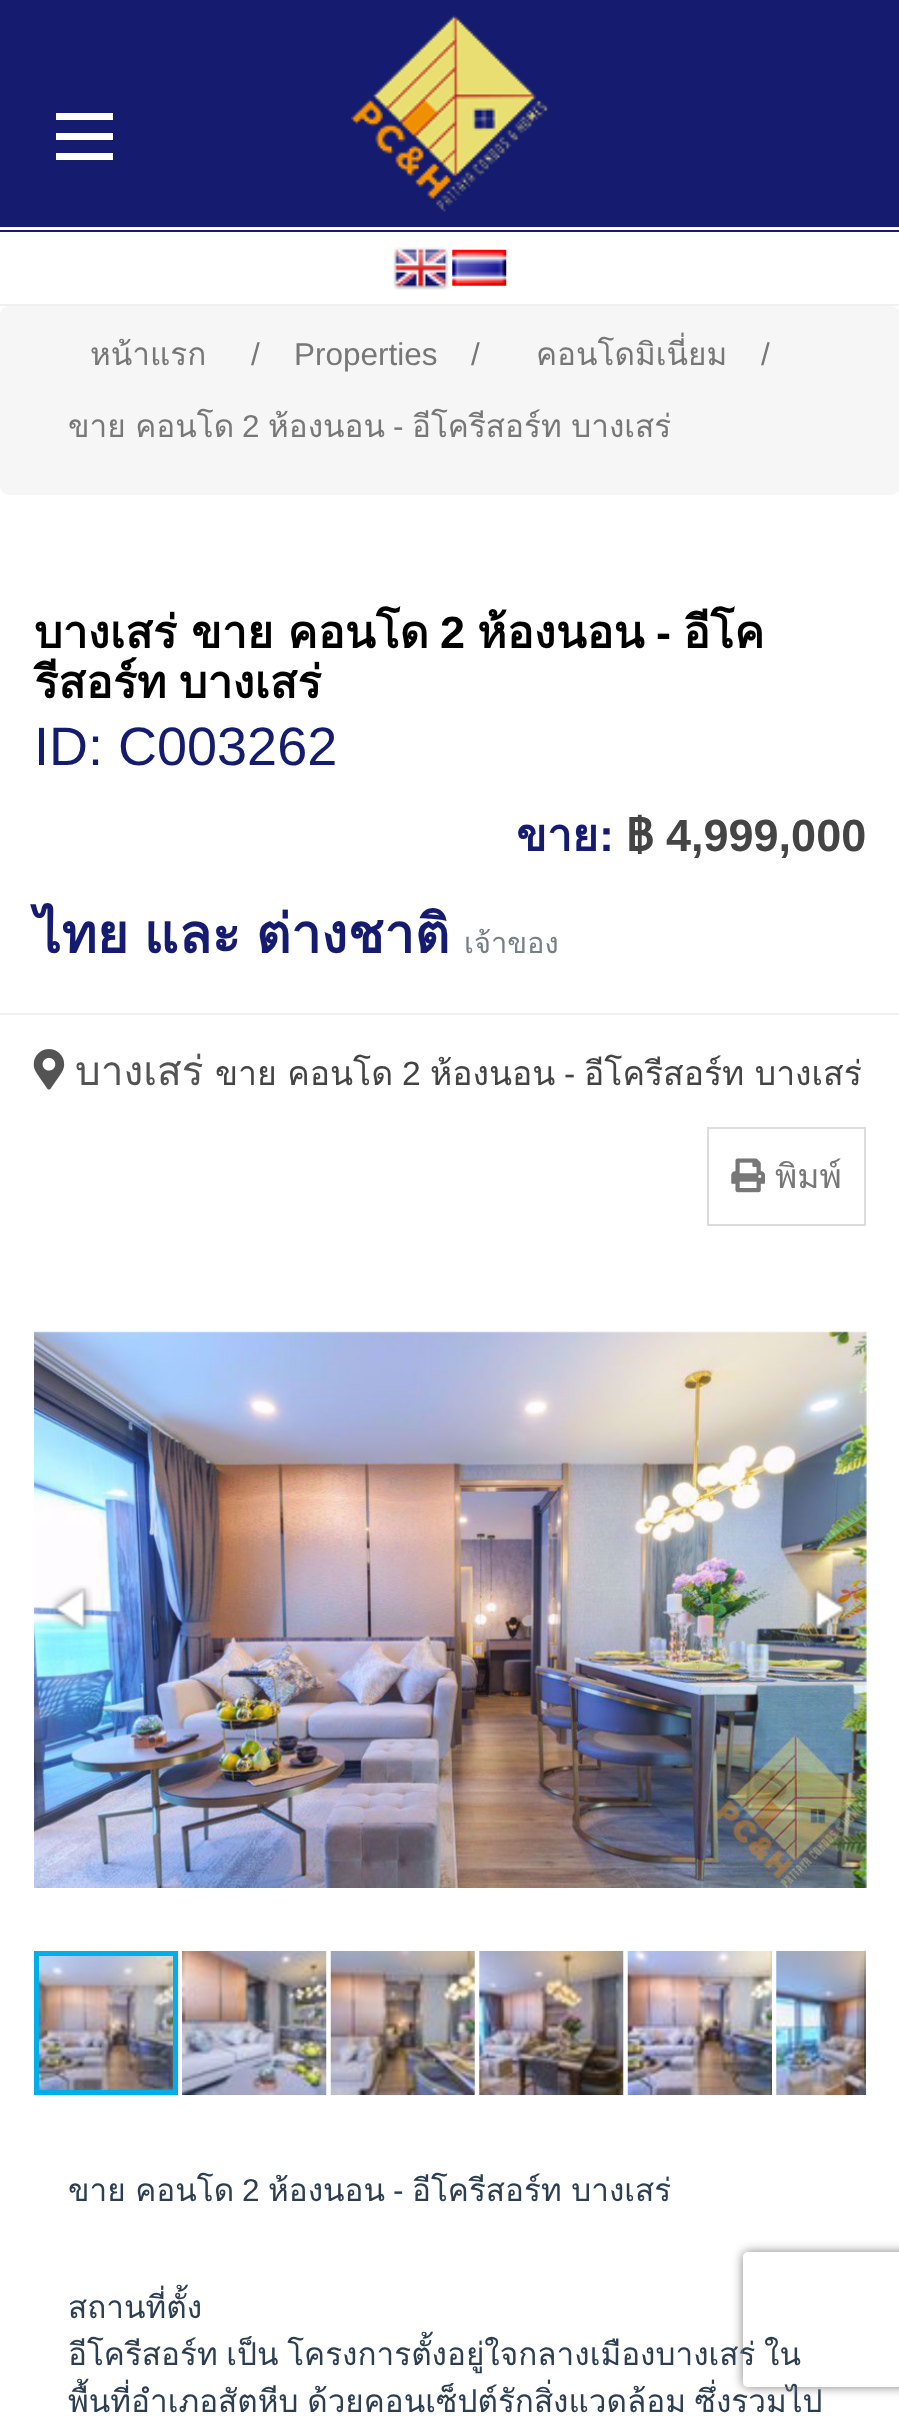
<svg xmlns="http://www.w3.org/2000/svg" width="899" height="2418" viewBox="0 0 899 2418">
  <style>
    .t1 { font: 31.5px Loma; fill: #777; }
    .t2 { font: 31.5px Liberation Sans; fill: #777; }
    .t3 { font: bold 45px Loma; fill: #000; }
    .t4 { font: bold 45px Liberation Sans; fill: #000; }
    .t5 { font: 54px Liberation Sans; fill: #151c6f; }
    .t6 { font: bold 45px Loma; fill: #151c6f; }
    .t7 { font: bold 45px Liberation Sans; fill: #151c6f; }
    .t8 { font: bold 45px Loma; fill: #444; }
    .t9 { font: bold 45px Liberation Sans; fill: #444; }
    .t10 { font: bold 54px Loma; fill: #151c6f; }
    .t11 { font: 29px Loma; fill: #768082; }
    .t12 { font: 40.5px Loma; fill: #545454; }
    .t13 { font: 33.75px Loma; fill: #444; }
    .t14 { font: 33.75px Liberation Sans; fill: #444; }
    .t15 { font: 33.75px Loma; fill: #777; }
    .t16 { font: 31.5px Loma; fill: #2c3e50; }
    .t17 { font: 31.5px Liberation Sans; fill: #2c3e50; }
  </style>
  <defs>
    <radialGradient id="g1" gradientUnits="userSpaceOnUse" cx="0" cy="0" r="1" gradientTransform="matrix(11 0 0 77 866 2023)"><stop offset="0" stop-color="#000" stop-opacity="0.4"/><stop offset="1" stop-color="#000" stop-opacity="0"/></radialGradient>
    <linearGradient id="g2" gradientUnits="userSpaceOnUse" x1="865" y1="1946" x2="865" y2="2099"><stop offset="0" stop-color="#000" stop-opacity="0"/><stop offset="0.25" stop-color="#000" stop-opacity="0.2"/><stop offset="0.75" stop-color="#000" stop-opacity="0.3"/><stop offset="1" stop-color="#000" stop-opacity="0"/></linearGradient>
    <clipPath id="clip1"><path d="M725 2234H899V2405H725ZM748 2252H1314C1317 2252 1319 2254 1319 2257V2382C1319 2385 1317 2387 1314 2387H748C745 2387 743 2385 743 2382V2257C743 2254 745 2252 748 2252Z" clip-rule="evenodd"/></clipPath>
  </defs>
  <rect width="100%" height="100%" fill="#fff"/>
  <rect x="0" y="0" width="899" height="227" fill="#151c6f"/>
  <image x="351" y="15" width="197" height="197" href="images/1.png"/>
  <rect x="0" y="230" width="899" height="2" fill="#151c6f"/>
  <rect x="56" y="113" width="57" height="7" fill="#fff"/>
  <rect x="56" y="133" width="57" height="7" fill="#fff"/>
  <rect x="56" y="153" width="57" height="7" fill="#fff"/>
  <image x="393" y="247" width="55" height="43" href="images/2.png"/>
  <image x="452" y="249" width="55" height="37" href="images/3.png"/>
  <rect x="0" y="304" width="899" height="2" fill="#f0f0f0"/>
  <rect x="0" y="306" width="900" height="189" rx="9" fill="#f6f6f6"/>
  <text x="90" y="365" class="t1">หน้าแรก</text>
  <text x="251" y="365" class="t2">/</text>
  <text x="294" y="365" class="t2">Properties</text>
  <text x="471" y="365" class="t2">/</text>
  <text x="536" y="365" class="t1">คอนโดมิเนี่ยม</text>
  <text x="761" y="365" class="t2">/</text>
  <text x="68" y="437" word-spacing="-1" class="t1">ขาย คอนโด</text>
  <text x="242" y="437" class="t2">2</text>
  <text x="268" y="437" class="t1">ห้องนอน</text>
  <text x="393" y="437" class="t2">-</text>
  <text x="412" y="437" word-spacing="-1" class="t1">อีโครีสอร์ท บางเสร่</text>
  <text x="34" y="648" word-spacing="-1" class="t3">บางเสร่ ขาย คอนโด</text>
  <text x="440" y="648" class="t4">2</text>
  <text x="477" y="648" class="t3">ห้องนอน</text>
  <text x="656" y="648" class="t4">-</text>
  <text x="683" y="648" class="t3">อีโค</text>
  <text x="34" y="698" word-spacing="-3" class="t3">รีสอร์ท บางเสร่</text>
  <text x="34" y="765" class="t5">ID: C003262</text>
  <text x="516" y="851" class="t6">ขาย</text>
  <text x="599" y="851" class="t7">:</text>
  <text x="626" y="851" class="t8">฿</text>
  <text x="666" y="851" class="t9">4,999,000</text>
  <text x="34" y="953" word-spacing="-3" class="t10">ไทย และ ต่างชาติ</text>
  <text x="464" y="953" class="t11">เจ้าของ</text>
  <rect x="0" y="1013" width="899" height="2" fill="#f0f0f0"/>
  <image x="33" y="1049" width="32" height="41" href="images/4.png"/>
  <text x="75" y="1085" class="t12">บางเสร่</text>
  <text x="215" y="1085" word-spacing="-1" class="t13">ขาย คอนโด</text>
  <text x="402" y="1085" class="t14">2</text>
  <text x="430" y="1085" class="t13">ห้องนอน</text>
  <text x="564" y="1085" class="t14">-</text>
  <text x="584" y="1085" word-spacing="-1" class="t13">อีโครีสอร์ท บางเสร่</text>
  <rect x="708" y="1128" width="157" height="97" fill="none" stroke="#ddd" stroke-width="2"/>
  <image x="731" y="1158" width="34" height="35" href="images/5.png"/>
  <text x="775" y="1188" class="t15">พิมพ์</text>
  <image x="34" y="1331" width="833" height="557" href="images/6.png"/>
  <image x="51" y="1585" width="42" height="48" href="images/7.png"/>
  <image x="807" y="1585" width="42" height="46" href="images/8.png"/>
  <image x="776" y="1951" width="90" height="144" href="images/13.png"/>
  <rect x="856" y="1950" width="10" height="146" fill="url(#g1)"/>
  <rect x="864" y="1946" width="2" height="153" fill="url(#g2)"/>
  <image x="39" y="1956" width="134" height="134" href="images/14.png"/>
  <rect x="36.5" y="1953.5" width="139" height="139" fill="none" stroke="#00afea" stroke-width="5"/>
  <image x="182" y="1951" width="145" height="144" href="images/9.png"/>
  <image x="330" y="1951" width="145" height="144" href="images/10.png"/>
  <image x="479" y="1951" width="145" height="144" href="images/11.png"/>
  <image x="627" y="1951" width="145" height="144" href="images/12.png"/>
  <text x="68" y="2201" word-spacing="-1" class="t16">ขาย คอนโด</text>
  <text x="242" y="2201" class="t17">2</text>
  <text x="268" y="2201" class="t16">ห้องนอน</text>
  <text x="393" y="2201" class="t17">-</text>
  <text x="412" y="2201" word-spacing="-1" class="t16">อีโครีสอร์ท บางเสร่</text>
  <text x="68" y="2318" class="t16">สถานที่ตั้ง</text>
  <text x="68" y="2365" word-spacing="-2" class="t16">อีโครีสอร์ท เป็น โครงการตั้งอยู่ใจกลางเมืองบางเสร่ ใน</text>
  <text x="68" y="2412" word-spacing="-2" class="t16">พื้นที่อำเภอสัตหีบ ด้วยคอนเซ็ปต์รักสิ่งแวดล้อม ซึ่งรวมไป</text>
  <g clip-path="url(#clip1)">
    <rect x="743" y="2252" width="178" height="135" rx="5" fill="#808080" filter="blur(5.5px)"/>
  </g>
</svg>
